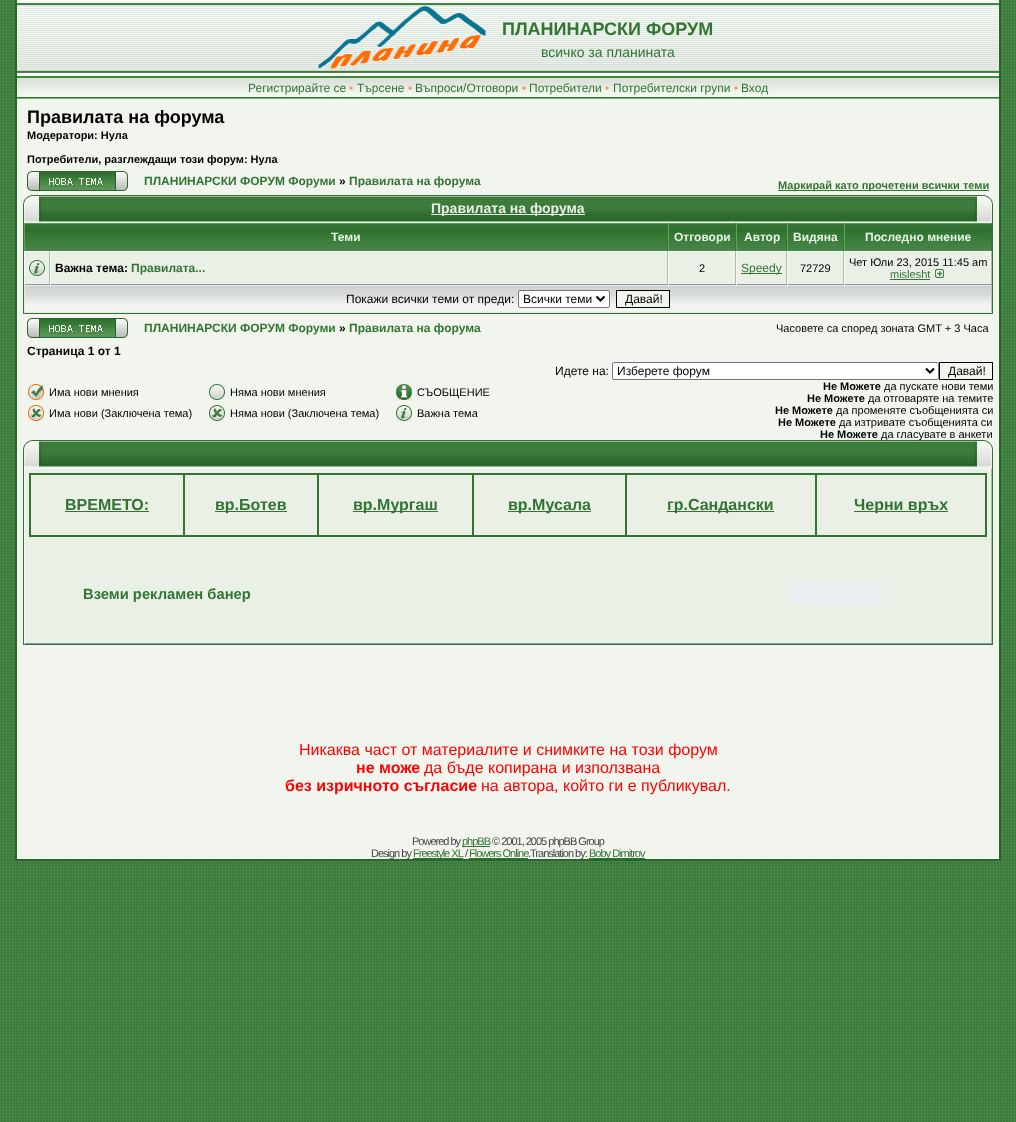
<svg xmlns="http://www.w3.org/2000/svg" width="1016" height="1122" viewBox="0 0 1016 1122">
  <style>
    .t1 { font: bold 18px Liberation Sans; fill: #327533; }
    .t2 { font: 14px Liberation Sans; fill: #327533; }
    .t3 { font: 12px Liberation Sans; fill: #327533; }
    .t4 { font: 12px Liberation Sans; fill: #ff964a; }
    .t5 { font: bold 18px Liberation Sans; fill: #000; }
    .t6 { font: bold 11px Liberation Sans; fill: #000; }
    .t7 { font: bold 12px Liberation Sans; fill: #327533; }
    .t8 { font: bold 12px Liberation Sans; fill: #000; }
    .t9 { font: bold 11px Liberation Sans; fill: #327533; }
    .t10 { font: bold 14px Liberation Sans; fill: #eaf0e6; }
    .t11 { font: bold 12px Liberation Sans; fill: #eaf0e6; }
    .t12 { font: 11px Liberation Sans; fill: #000; }
    .t13 { font: 11px Liberation Sans; fill: #327533; }
    .t14 { font: 12px Liberation Sans; fill: #000; }
    .t15 { font: bold 16px Liberation Sans; fill: #327533; }
    .t16 { font: bold 14.75px Liberation Sans; fill: #327533; }
    .t17 { font: 16px Liberation Sans; fill: #f00; }
    .t18 { font: bold 16px Liberation Sans; fill: #f00; }
    .t19 { font: 11px Liberation Sans; letter-spacing: -1px; fill: #444; }
    .t20 { font: 11px Liberation Sans; letter-spacing: -1px; fill: #327533; }
  </style>
  <rect width="100%" height="100%" fill="#fff"/>
  <image x="0" y="861" width="1016" height="261" href="images/1.png"/>
  <image x="0" y="0" width="1016" height="861" href="images/2.png"/>
  <rect x="17" y="99" width="982" height="760" fill="#f2f5ed"/>
  <rect x="999" y="0" width="2" height="861" fill="#28662c"/>
  <rect x="15" y="859" width="986" height="2" fill="#28662c"/>
  <rect x="15" y="0" width="2" height="861" fill="#28662c"/>
  <image x="17" y="0" width="982" height="76" href="images/3.png"/>
  <image x="318" y="6" width="168" height="63" href="images/4.png"/>
  <text x="502" y="35" class="t1">ПЛАНИНАРСКИ ФОРУМ</text>
  <text x="541" y="57" class="t2">всичко за планината</text>
  <image x="17" y="76" width="982" height="23" href="images/5.png"/>
  <text x="248" y="92" class="t3">Регистрирайте се</text>
  <text x="349" y="92" class="t4">•</text>
  <text x="357" y="92" class="t3">Търсене</text>
  <text x="408" y="92" class="t4">•</text>
  <text x="415" y="92" class="t3">Въпроси/Отговори</text>
  <text x="522" y="92" class="t4">•</text>
  <text x="529" y="92" class="t3">Потребители</text>
  <text x="605" y="92" class="t4">•</text>
  <text x="613" y="92" class="t3">Потребителски групи</text>
  <text x="734" y="92" class="t4">•</text>
  <text x="741" y="92" class="t3">Вход</text>
  <text x="27" y="123" class="t5">Правилата на форума</text>
  <text x="27" y="139" class="t6">Модератори: Нула</text>
  <text x="27" y="163" class="t6">Потребители, разглеждащи този форум: Нула</text>
  <image x="27" y="171" width="101" height="20" href="images/6.png"/>
  <text x="144" y="185" class="t7">ПЛАНИНАРСКИ ФОРУМ Форуми</text>
  <text x="339" y="185" class="t8">»</text>
  <text x="349" y="185" class="t7">Правилата на форума</text>
  <rect x="778" y="190" width="211" height="1" fill="#327533"/>
  <text x="778" y="189" class="t9">Маркирай като прочетени всички теми</text>
  <rect x="24" y="222" width="968" height="62" fill="#eaf0e6"/>
  <rect x="23.5" y="195.5" width="969" height="118" fill="none" stroke="#327533"/>
  <image x="42" y="196" width="6" height="26" href="images/7.png"/>
  <image x="23" y="195" width="19" height="27" href="images/8.png"/>
  <image x="48" y="196" width="920" height="26" href="images/9.png"/>
  <rect x="431" y="214" width="154" height="1" fill="#eaf0e6"/>
  <text x="431" y="213" class="t10">Правилата на форума</text>
  <image x="968" y="196" width="6" height="26" href="images/7.png"/>
  <image x="974" y="195" width="19" height="27" href="images/10.png"/>
  <image x="25" y="224" width="642" height="26" href="images/11.png"/>
  <rect x="24" y="223" width="968" height="1" fill="#589d57"/>
  <rect x="667" y="223" width="1" height="28" fill="#377335"/>
  <rect x="24" y="250" width="644" height="1" fill="#4c8d48"/>
  <rect x="24" y="223" width="1" height="28" fill="#5fa45b"/>
  <text x="331" y="241" class="t11">Теми</text>
  <image x="669" y="224" width="66" height="26" href="images/12.png"/>
  <rect x="735" y="223" width="1" height="28" fill="#377335"/>
  <rect x="668" y="250" width="68" height="1" fill="#4c8d48"/>
  <rect x="668" y="223" width="1" height="28" fill="#5fa45b"/>
  <text x="674" y="241" class="t11">Отговори</text>
  <image x="737" y="224" width="49" height="26" href="images/13.png"/>
  <rect x="786" y="223" width="1" height="28" fill="#377335"/>
  <rect x="736" y="250" width="51" height="1" fill="#4c8d48"/>
  <rect x="736" y="223" width="1" height="28" fill="#5fa45b"/>
  <text x="744" y="241" class="t11">Автор</text>
  <image x="788" y="224" width="55" height="26" href="images/14.png"/>
  <rect x="843" y="223" width="1" height="28" fill="#377335"/>
  <rect x="787" y="250" width="57" height="1" fill="#4c8d48"/>
  <rect x="787" y="223" width="1" height="28" fill="#5fa45b"/>
  <text x="793" y="241" class="t11">Видяна</text>
  <image x="845" y="224" width="146" height="26" href="images/15.png"/>
  <rect x="991" y="223" width="1" height="28" fill="#377335"/>
  <rect x="844" y="250" width="148" height="1" fill="#4c8d48"/>
  <rect x="844" y="223" width="1" height="28" fill="#5fa45b"/>
  <text x="865" y="241" class="t11">Последно мнение</text>
  <rect x="24" y="251" width="968" height="1" fill="#f5f7f9"/>
  <rect x="49" y="251" width="1" height="34" fill="#a2c6a1"/>
  <rect x="24" y="284" width="26" height="1" fill="#849ab1"/>
  <rect x="24" y="251" width="1" height="34" fill="#f5f7f9"/>
  <image x="29" y="260" width="16" height="16" href="images/16.png"/>
  <rect x="667" y="251" width="1" height="34" fill="#a2c6a1"/>
  <rect x="50" y="284" width="618" height="1" fill="#849ab1"/>
  <rect x="50" y="251" width="1" height="34" fill="#f5f7f9"/>
  <text x="55" y="272" class="t8">Важна тема:</text>
  <text x="131" y="272" class="t7">Правилата...</text>
  <rect x="735" y="251" width="1" height="34" fill="#a2c6a1"/>
  <rect x="668" y="284" width="68" height="1" fill="#849ab1"/>
  <rect x="668" y="251" width="1" height="34" fill="#f5f7f9"/>
  <text x="699" y="272" class="t12">2</text>
  <rect x="786" y="251" width="1" height="34" fill="#a2c6a1"/>
  <rect x="736" y="284" width="51" height="1" fill="#849ab1"/>
  <rect x="736" y="251" width="1" height="34" fill="#f5f7f9"/>
  <rect x="741" y="273" width="41" height="1" fill="#327533"/>
  <text x="741" y="272" class="t3">Speedy</text>
  <rect x="843" y="251" width="1" height="34" fill="#a2c6a1"/>
  <rect x="787" y="284" width="57" height="1" fill="#849ab1"/>
  <rect x="787" y="251" width="1" height="34" fill="#f5f7f9"/>
  <text x="800" y="272" class="t12">72729</text>
  <rect x="991" y="251" width="1" height="34" fill="#a2c6a1"/>
  <rect x="844" y="284" width="148" height="1" fill="#849ab1"/>
  <rect x="844" y="251" width="1" height="34" fill="#f5f7f9"/>
  <text x="849" y="266" class="t12">Чет Юли 23, 2015 11:45 am</text>
  <text x="890" y="278" class="t13">mislesht</text>
  <rect x="890" y="279" width="40" height="1" fill="#327533"/>
  <image x="935" y="269" width="9" height="9" href="images/17.png"/>
  <image x="25" y="286" width="966" height="26" href="images/18.png"/>
  <rect x="24" y="285" width="968" height="1" fill="#e7e8e2"/>
  <rect x="991" y="285" width="1" height="28" fill="#b8c0b8"/>
  <rect x="24" y="312" width="968" height="1" fill="#e7e8e2"/>
  <rect x="24" y="285" width="1" height="28" fill="#e7e8e2"/>
  <text x="346" y="303" class="t14">Покажи всички теми от преди:</text>
  <rect x="518.5" y="290.5" width="91" height="17" rx="1.5" fill="#fff" stroke="#767676"/>
  <path d="M596.5 296.5L600.5 300.5L604.5 296.5" fill="none" stroke="#000" stroke-width="2"/>
  <text x="523" y="303" class="t14">Всички теми</text>
  <rect x="616.5" y="290.5" width="53" height="17" fill="#f0f5ee" stroke="#000"/>
  <text x="625" y="303" class="t14">Давай!</text>
  <image x="27" y="318" width="101" height="20" href="images/6.png"/>
  <text x="144" y="332" class="t7">ПЛАНИНАРСКИ ФОРУМ Форуми</text>
  <text x="339" y="332" class="t8">»</text>
  <text x="349" y="332" class="t7">Правилата на форума</text>
  <text x="776" y="332" class="t12">Часовете са според зоната GMT + 3 Часа</text>
  <text x="27" y="355" class="t8">Страница 1 от 1</text>
  <text x="555" y="375" class="t14">Идете на:</text>
  <rect x="612.5" y="362.5" width="326" height="17" rx="1.5" fill="#fff" stroke="#767676"/>
  <path d="M926 368.5L930 372.5L934 368.5" fill="none" stroke="#000" stroke-width="2"/>
  <text x="617" y="375" class="t14">Изберете форум</text>
  <rect x="939.5" y="362.5" width="53" height="17" fill="none" stroke="#000"/>
  <text x="948" y="375" class="t14">Давай!</text>
  <image x="28" y="384" width="16" height="16" href="images/19.png"/>
  <text x="49" y="396" class="t12">Има нови мнения</text>
  <image x="209" y="384" width="16" height="16" href="images/20.png"/>
  <text x="230" y="396" class="t12">Няма нови мнения</text>
  <image x="396" y="384" width="16" height="16" href="images/21.png"/>
  <text x="417" y="396" class="t12">СЪОБЩЕНИЕ</text>
  <image x="28" y="405" width="16" height="16" href="images/22.png"/>
  <text x="49" y="417" class="t12">Има нови (Заключена тема)</text>
  <image x="209" y="405" width="16" height="16" href="images/23.png"/>
  <text x="230" y="417" class="t12">Няма нови (Заключена тема)</text>
  <image x="396" y="405" width="16" height="16" href="images/16.png"/>
  <text x="417" y="417" class="t12">Важна тема</text>
  <text x="823" y="390" class="t6">Не Можете</text>
  <text x="884" y="390" class="t12">да пускате нови теми</text>
  <text x="807" y="402" class="t6">Не Можете</text>
  <text x="868" y="402" class="t12">да отговаряте на темите</text>
  <text x="775" y="414" class="t6">Не Можете</text>
  <text x="836" y="414" class="t12">да променяте съобщенията си</text>
  <text x="778" y="426" class="t6">Не Можете</text>
  <text x="839" y="426" class="t12">да изтривате съобщенията си</text>
  <text x="820" y="438" class="t6">Не Можете</text>
  <rect x="24" y="467" width="968" height="176" fill="#eaf0e6"/>
  <rect x="23.5" y="440.5" width="969" height="204" fill="none" stroke="#327533"/>
  <text x="881" y="438" class="t12">да гласувате в анкети</text>
  <image x="42" y="441" width="6" height="26" href="images/7.png"/>
  <image x="23" y="440" width="19" height="27" href="images/8.png"/>
  <image x="48" y="441" width="920" height="26" href="images/9.png"/>
  <image x="968" y="441" width="6" height="26" href="images/7.png"/>
  <image x="974" y="440" width="19" height="27" href="images/10.png"/>
  <rect x="24" y="468" width="968" height="1" fill="#f5f7f9"/>
  <rect x="991" y="468" width="1" height="176" fill="#a2c6a1"/>
  <rect x="24" y="643" width="968" height="1" fill="#849ab1"/>
  <rect x="24" y="468" width="1" height="176" fill="#f5f7f9"/>
  <rect x="29.5" y="473.5" width="957" height="63" fill="none" stroke="#327533"/>
  <rect x="30.5" y="474.5" width="153" height="61" fill="none" stroke="#327533"/>
  <text x="65" y="510" class="t15">ВРЕМЕТО:</text>
  <rect x="65" y="511" width="84" height="1" fill="#327533"/>
  <rect x="184.5" y="474.5" width="133" height="61" fill="none" stroke="#327533"/>
  <rect x="215" y="511" width="72" height="1" fill="#327533"/>
  <text x="215" y="510" class="t15">вр.Ботев</text>
  <rect x="318.5" y="474.5" width="154" height="61" fill="none" stroke="#327533"/>
  <rect x="353" y="511" width="85" height="1" fill="#327533"/>
  <text x="353" y="510" class="t15">вр.Мургаш</text>
  <rect x="473.5" y="474.5" width="152" height="61" fill="none" stroke="#327533"/>
  <rect x="508" y="511" width="83" height="1" fill="#327533"/>
  <text x="508" y="510" class="t15">вр.Мусала</text>
  <rect x="626.5" y="474.5" width="189" height="61" fill="none" stroke="#327533"/>
  <rect x="667" y="511" width="107" height="1" fill="#327533"/>
  <text x="667" y="510" class="t15">гр.Сандански</text>
  <rect x="816.5" y="474.5" width="169" height="61" fill="none" stroke="#327533"/>
  <rect x="854" y="511" width="94" height="1" fill="#327533"/>
  <text x="854" y="510" class="t15">Черни връх</text>
  <text x="83" y="599" class="t16">Вземи рекламен банер</text>
  <rect x="791" y="584" width="90" height="20" fill="#eaeef3"/>
  <text x="299" y="755" class="t17">Никаква част от материалите и снимките на този форум</text>
  <text x="356" y="773" class="t18">не може</text>
  <text x="424" y="773" class="t17">да бъде копирана и използвана</text>
  <text x="285" y="791" class="t18">без изричното съгласие</text>
  <text x="481" y="791" class="t17">на автора, който ги е публикувал.</text>
  <text x="412" y="845" class="t19">Powered by</text>
  <rect x="462" y="846" width="28" height="1" fill="#327533"/>
  <text x="462" y="845" class="t20">phpBB</text>
  <text x="492" y="845" class="t19">© 2001, 2005 phpBB Group</text>
  <text x="371" y="857" class="t19">Design by</text>
  <rect x="413" y="858" width="50" height="1" fill="#327533"/>
  <text x="413" y="857" class="t20">Freestyle XL</text>
  <text x="465" y="857" class="t19">/</text>
  <text x="469" y="857" class="t20">Flowers Online</text>
  <text x="528" y="857" class="t19">.Translation by:</text>
  <rect x="469" y="858" width="59" height="1" fill="#327533"/>
  <rect x="589" y="858" width="56" height="1" fill="#327533"/>
  <text x="589" y="857" class="t20">Boby Dimitrov</text>
</svg>
